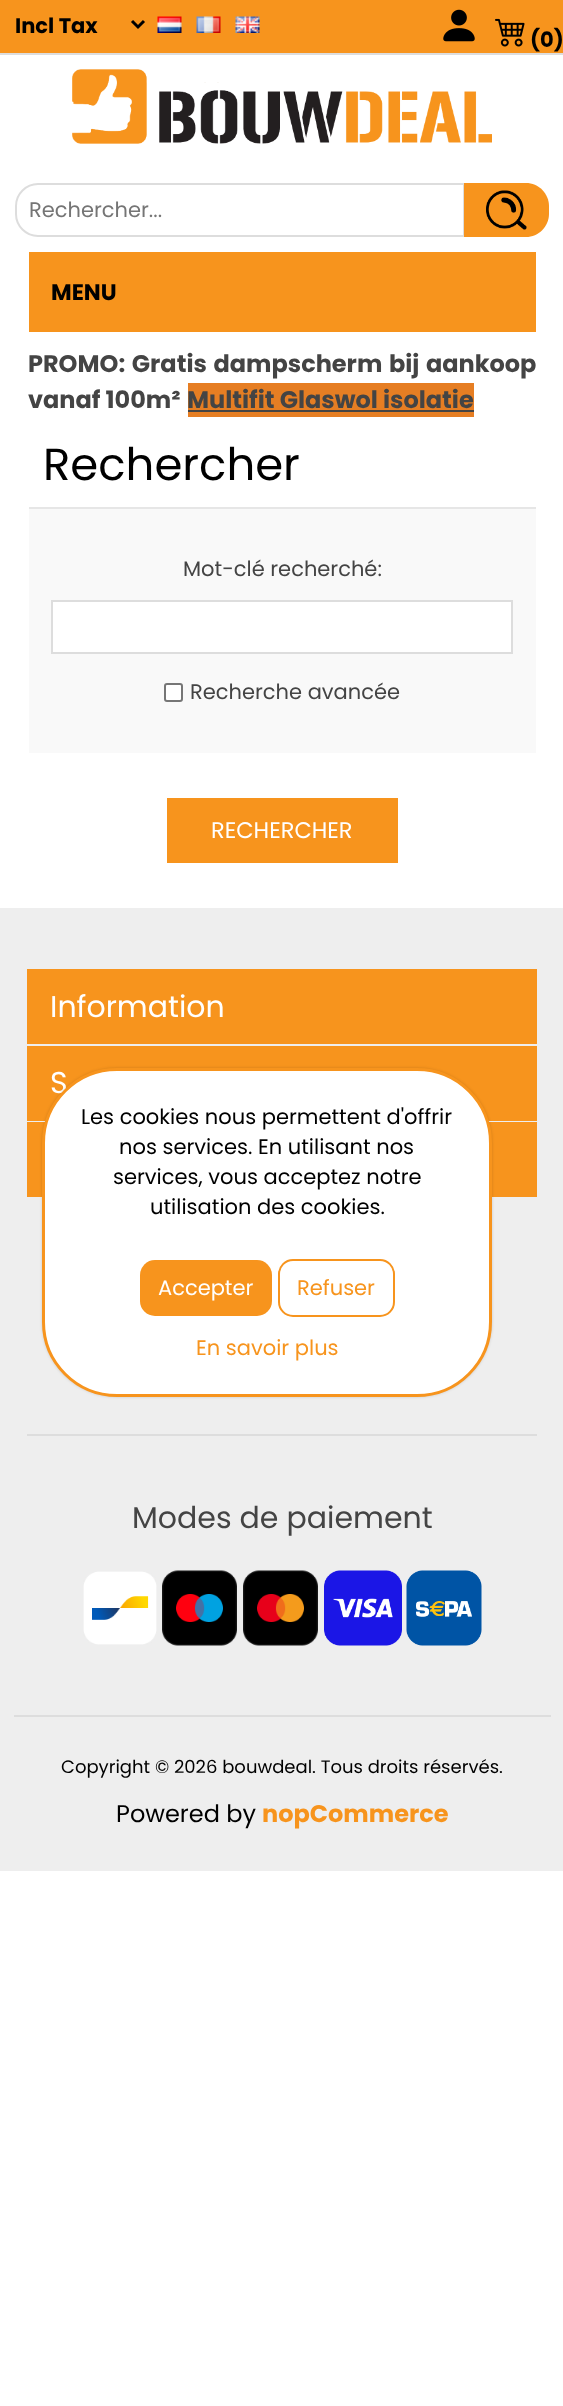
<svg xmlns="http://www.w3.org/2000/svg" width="563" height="2406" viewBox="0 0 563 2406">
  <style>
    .t1 { font: bold 21px Poppins; fill: #000; }
    .t2 { font: 21px Poppins; fill: #757575; }
    .t3 { font: bold 22.5px Poppins; fill: #000; }
    .t4 { font: bold 24px Poppins; fill: #444; }
    .t5 { font: 45px Poppins; fill: #000; }
    .t6 { font: 21px Poppins; fill: #444; }
    .t7 { font: 22.5px Poppins; fill: #fff; }
    .t8 { font: 30px Poppins; fill: #fff; }
    .t9 { font: 30px Poppins; fill: #444; }
    .t10 { font: 18px Poppins; fill: #000; }
    .t11 { font: 24px Poppins; fill: #000; }
    .t12 { font: bold 24px Poppins; fill: #f7941d; }
    .t13 { font: 21px Poppins; fill: #000; }
    .t14 { font: 21px Poppins; fill: #fff; }
    .t15 { font: 21px Poppins; fill: #f7941d; }
  </style>
  <rect width="100%" height="100%" fill="#fff"/>
  <rect x="0" y="0" width="563" height="53" fill="#f7941d"/>
  <rect x="0" y="53" width="563" height="2" fill="#ddd"/>
  <path d="M132 21L138 27L144 21" fill="none" stroke="#000" stroke-width="3"/>
  <text x="15" y="33" class="t1">Incl Tax</text>
  <image x="157" y="16" width="25" height="17" href="images/1.png"/>
  <image x="196" y="16" width="25" height="17" href="images/2.png"/>
  <image x="235" y="16" width="25" height="17" href="images/3.png"/>
  <image x="443" y="9" width="32" height="33" href="images/4.png"/>
  <image x="495" y="18" width="30" height="29" href="images/5.png"/>
  <text x="530" y="47" class="t1">(0)</text>
  <image x="72" y="69" width="420" height="75" href="images/6.png"/>
  <path d="M38 184H464V236H38C26 236 16 226 16 214V206C16 194 26 184 38 184Z" fill="none" stroke="#ddd" stroke-width="2"/>
  <text x="29" y="217" class="t2">Rechercher...</text>
  <path d="M464 183H526C538.5 183 549 193.5 549 206V214C549 226.5 538.5 237 526 237H464Z" fill="#f7941d"/>
  <image x="486" y="190" width="41" height="40" href="images/7.png"/>
  <rect x="29" y="252" width="507" height="80" fill="#f7941d"/>
  <text x="51" y="300" class="t3">MENU</text>
  <text x="28" y="372" word-spacing="1.5" class="t4">PROMO: Gratis dampscherm bij aankoop</text>
  <text x="28" y="408" class="t4">vanaf 100m²</text>
  <rect x="188" y="383" width="286" height="34" fill="#e67e23"/>
  <text x="187" y="408" class="t4">Multifit Glaswol isolatie</text>
  <rect x="188" y="410" width="286" height="2" fill="#444"/>
  <text x="43" y="480" class="t5">Rechercher</text>
  <rect x="29" y="509" width="507" height="244" fill="#f9f9f9"/>
  <rect x="29" y="507" width="507" height="2" fill="#e6e6e6"/>
  <text x="183" y="576" class="t6">Mot-clé recherché:</text>
  <rect x="52" y="601" width="460" height="52" fill="#fff" stroke="#ddd" stroke-width="2"/>
  <rect x="165" y="684" width="17" height="17" rx="2" fill="#fff" stroke="#767676" stroke-width="2"/>
  <text x="190" y="699" class="t6">Recherche avancée</text>
  <rect x="167" y="798" width="231" height="65" fill="#f7941d"/>
  <text x="211" y="838" class="t7">RECHERCHER</text>
  <rect x="0" y="908" width="563" height="963" fill="#eee"/>
  <rect x="14" y="1715" width="537" height="2" fill="#ddd"/>
  <rect x="27" y="969" width="510" height="75" fill="#f7941d"/>
  <text x="50" y="1017" class="t8">Information</text>
  <rect x="27" y="1046" width="510" height="75" fill="#f7941d"/>
  <text x="50" y="1093" class="t8">S</text>
  <rect x="27" y="1122" width="510" height="75" fill="#f7941d"/>
  <rect x="27" y="1434" width="510" height="2" fill="#ddd"/>
  <text x="132" y="1528" class="t9">Modes de paiement</text>
  <image x="83" y="1571" width="74" height="74" href="images/8.png"/>
  <image x="162" y="1570" width="75" height="76" href="images/9.png"/>
  <image x="243" y="1570" width="75" height="76" href="images/10.png"/>
  <image x="324" y="1570" width="78" height="76" href="images/11.png"/>
  <image x="406" y="1570" width="76" height="76" href="images/12.png"/>
  <text x="61" y="1773" class="t10">Copyright © 2026 bouwdeal. Tous droits réservés.</text>
  <text x="116" y="1822" class="t11">Powered by</text>
  <text x="262" y="1822" class="t12">nopCommerce</text>
  <rect x="42" y="1068" width="450" height="329" rx="75" fill="#00000026" filter="blur(1.5px)"/>
  <rect x="43.5" y="1069.5" width="447" height="326" rx="73.5" fill="#fff" stroke="#f7941d" stroke-width="3"/>
  <text x="81" y="1124" class="t13">Les cookies nous permettent d'offrir</text>
  <text x="119" y="1154" class="t13">nos services. En utilisant nos</text>
  <text x="113" y="1184" class="t13">services, vous acceptez notre</text>
  <text x="150" y="1214" class="t13">utilisation des cookies.</text>
  <rect x="140" y="1260" width="132" height="56" rx="15" fill="#f7941d"/>
  <text x="158" y="1295" class="t14">Accepter</text>
  <rect x="279" y="1260" width="115" height="56" rx="14" fill="none" stroke="#f7941d" stroke-width="2"/>
  <text x="297" y="1295" class="t15">Refuser</text>
  <text x="196" y="1355" class="t15">En savoir plus</text>
</svg>
